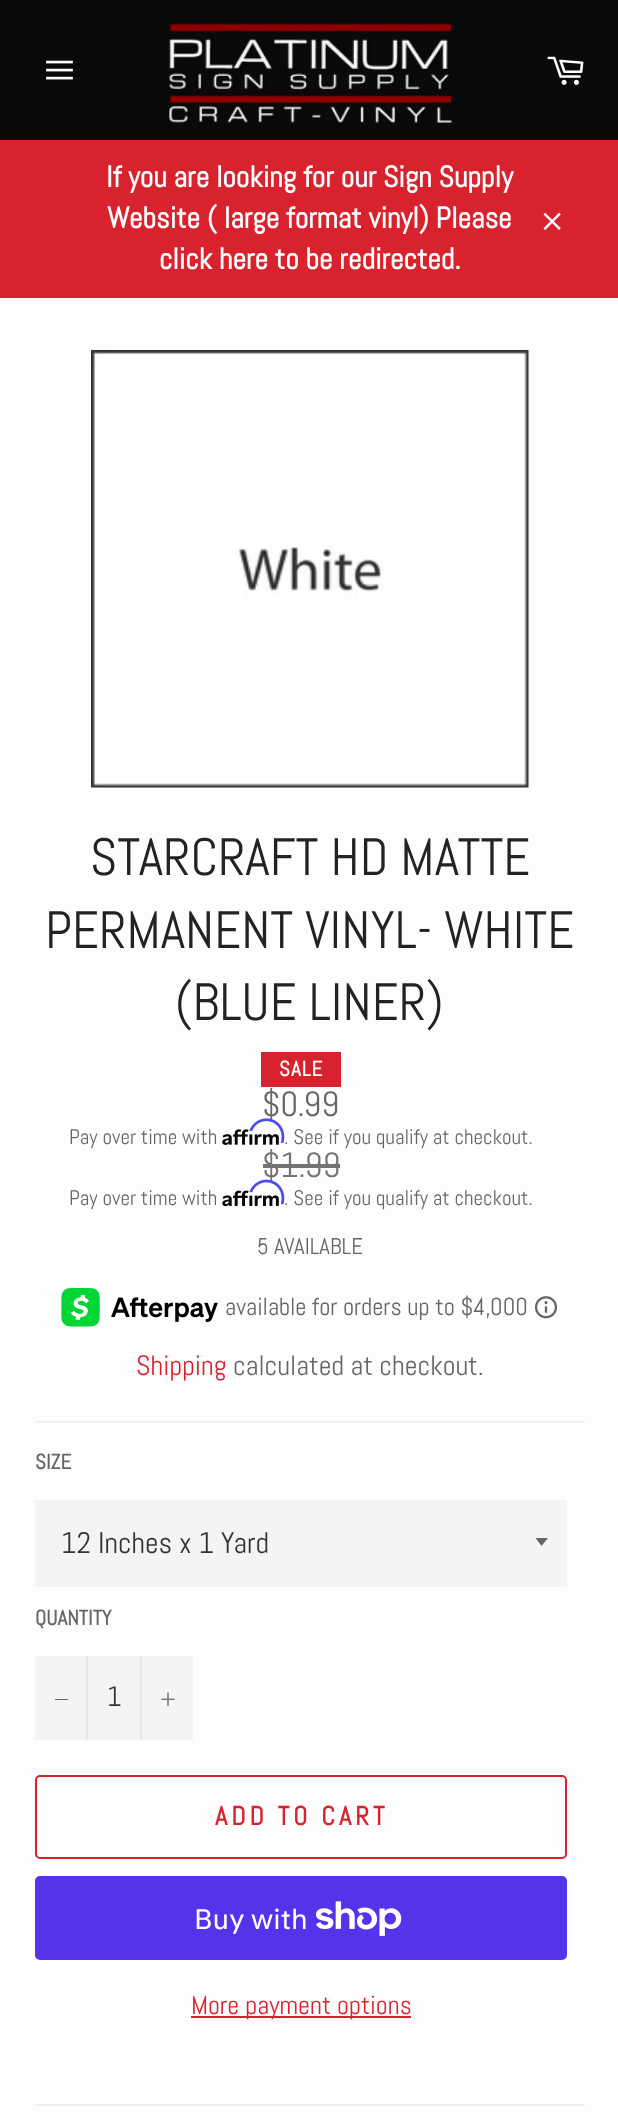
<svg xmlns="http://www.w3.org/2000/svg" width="618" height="2124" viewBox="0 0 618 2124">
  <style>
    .t1 { font: bold 29.75px Abel; fill: #fff; }
    .t2 { font: 52.5px Abel; fill: #222; }
    .t3 { font: bold 21px Abel; letter-spacing: 1px; fill: #fff; }
    .t4 { font: 35px Abel; fill: #666; }
    .t5 { font: 21px Abel; fill: #666; }
    .t6 { font: 35px Abel; fill: #737373; }
    .t7 { font: 22.75px Abel; fill: #666; }
    .t8 { font: 24.5px Abel; fill: #666; }
    .t9 { font: 28px Abel; fill: #d8232f; }
    .t10 { font: 28px Abel; fill: #666; }
    .t11 { font: bold 21px Abel; fill: #666; }
    .t12 { font: 29.75px Abel; fill: #333; }
    .t13 { font: 28px Abel; fill: #333; }
    .t14 { font: bold 26.25px Abel; letter-spacing: 4px; fill: #d8232f; }
    .t15 { font: 28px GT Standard; fill: #fff; }
    .t16 { font: 26.25px Abel; fill: #d8232f; }
  </style>
  <rect width="100%" height="100%" fill="#0a0a0a"/>
  <image x="46" y="60" width="27" height="20" href="images/1.png"/>
  <image x="169" y="23" width="284" height="100" href="images/2.png"/>
  <image x="547" y="56" width="37" height="29" href="images/3.png"/>
  <rect x="0" y="140" width="618" height="158" fill="#d8232f"/>
  <text x="106" y="187" class="t1">If you are looking for our Sign Supply</text>
  <text x="107" y="228" class="t1">Website ( large format vinyl) Please</text>
  <text x="159" y="269" class="t1">click here to be redirected.</text>
  <image x="543" y="212" width="18" height="18" href="images/4.png"/>
  <rect x="0" y="298" width="618" height="1826" fill="#fdfdfd"/>
  <image x="91" y="350" width="438" height="438" href="images/5.png"/>
  <text x="90" y="875" class="t2">STARCRAFT HD MATTE</text>
  <text x="45" y="948" class="t2">PERMANENT VINYL- WHITE</text>
  <text x="175" y="1020" class="t2">(BLUE LINER)</text>
  <rect x="261" y="1052" width="80" height="35" fill="#d8232f"/>
  <text x="279" y="1076" class="t3">SALE</text>
  <text x="262" y="1116" class="t4">$0.99</text>
  <text x="69" y="1144" class="t5">Pay over time with</text>
  <image x="222" y="1129" width="57" height="16" href="images/7.png"/>
  <image x="249" y="1118" width="36" height="25" href="images/6.png"/>
  <text x="284" y="1144" class="t5">. See if you qualify at checkout.</text>
  <text x="262" y="1177" class="t6">$1.99</text>
  <rect x="263" y="1164" width="77" height="4" fill="#737373"/>
  <text x="69" y="1205" class="t5">Pay over time with</text>
  <image x="222" y="1190" width="57" height="17" href="images/9.png"/>
  <image x="249" y="1179" width="36" height="26" href="images/8.png"/>
  <text x="284" y="1205" class="t5">. See if you qualify at checkout.</text>
  <text x="257" y="1254" class="t7">5 AVAILABLE</text>
  <image x="61" y="1288" width="157" height="39" href="images/10.png"/>
  <text x="225" y="1315" class="t8">available for orders up to $4,000</text>
  <image x="534" y="1296" width="24" height="23" href="images/11.png"/>
  <text x="136" y="1375" class="t9">Shipping</text>
  <text x="233" y="1375" class="t10">calculated at checkout.</text>
  <rect x="35" y="1421" width="550" height="2" fill="#f0f0f0"/>
  <text x="35" y="1469" class="t11">SIZE</text>
  <rect x="35" y="1500" width="532" height="87" fill="#f4f4f4"/>
  <path d="M535.5 1538L541.5 1546L548 1538Z" fill="#666"/>
  <text x="61" y="1553" class="t12">12 Inches x 1 Yard</text>
  <text x="35" y="1625" class="t11">QUANTITY</text>
  <rect x="35" y="1656" width="158" height="84" fill="#f4f4f4"/>
  <rect x="86" y="1656" width="2" height="84" fill="#e7e7e7"/>
  <rect x="55" y="1699" width="13" height="1" fill="#666"/>
  <text x="107" y="1706" class="t13">1</text>
  <rect x="140" y="1656" width="2" height="84" fill="#e7e7e7"/>
  <image x="161" y="1692" width="14" height="14" href="images/12.png"/>
  <rect x="36" y="1776" width="530" height="82" rx="4" fill="none" stroke="#d8232f" stroke-width="2"/>
  <text x="215" y="1825" class="t14">ADD TO CART</text>
  <rect x="35" y="1876" width="532" height="84" rx="5" fill="#5433eb"/>
  <text x="194" y="1929" class="t15">Buy with</text>
  <image x="316" y="1901" width="86" height="35" href="images/13.png"/>
  <rect x="191" y="2016" width="220" height="2" fill="#d8232f"/>
  <text x="191" y="2014" class="t16">More payment options</text>
  <rect x="35" y="2104" width="550" height="2" fill="#f0f0f0"/>
</svg>
